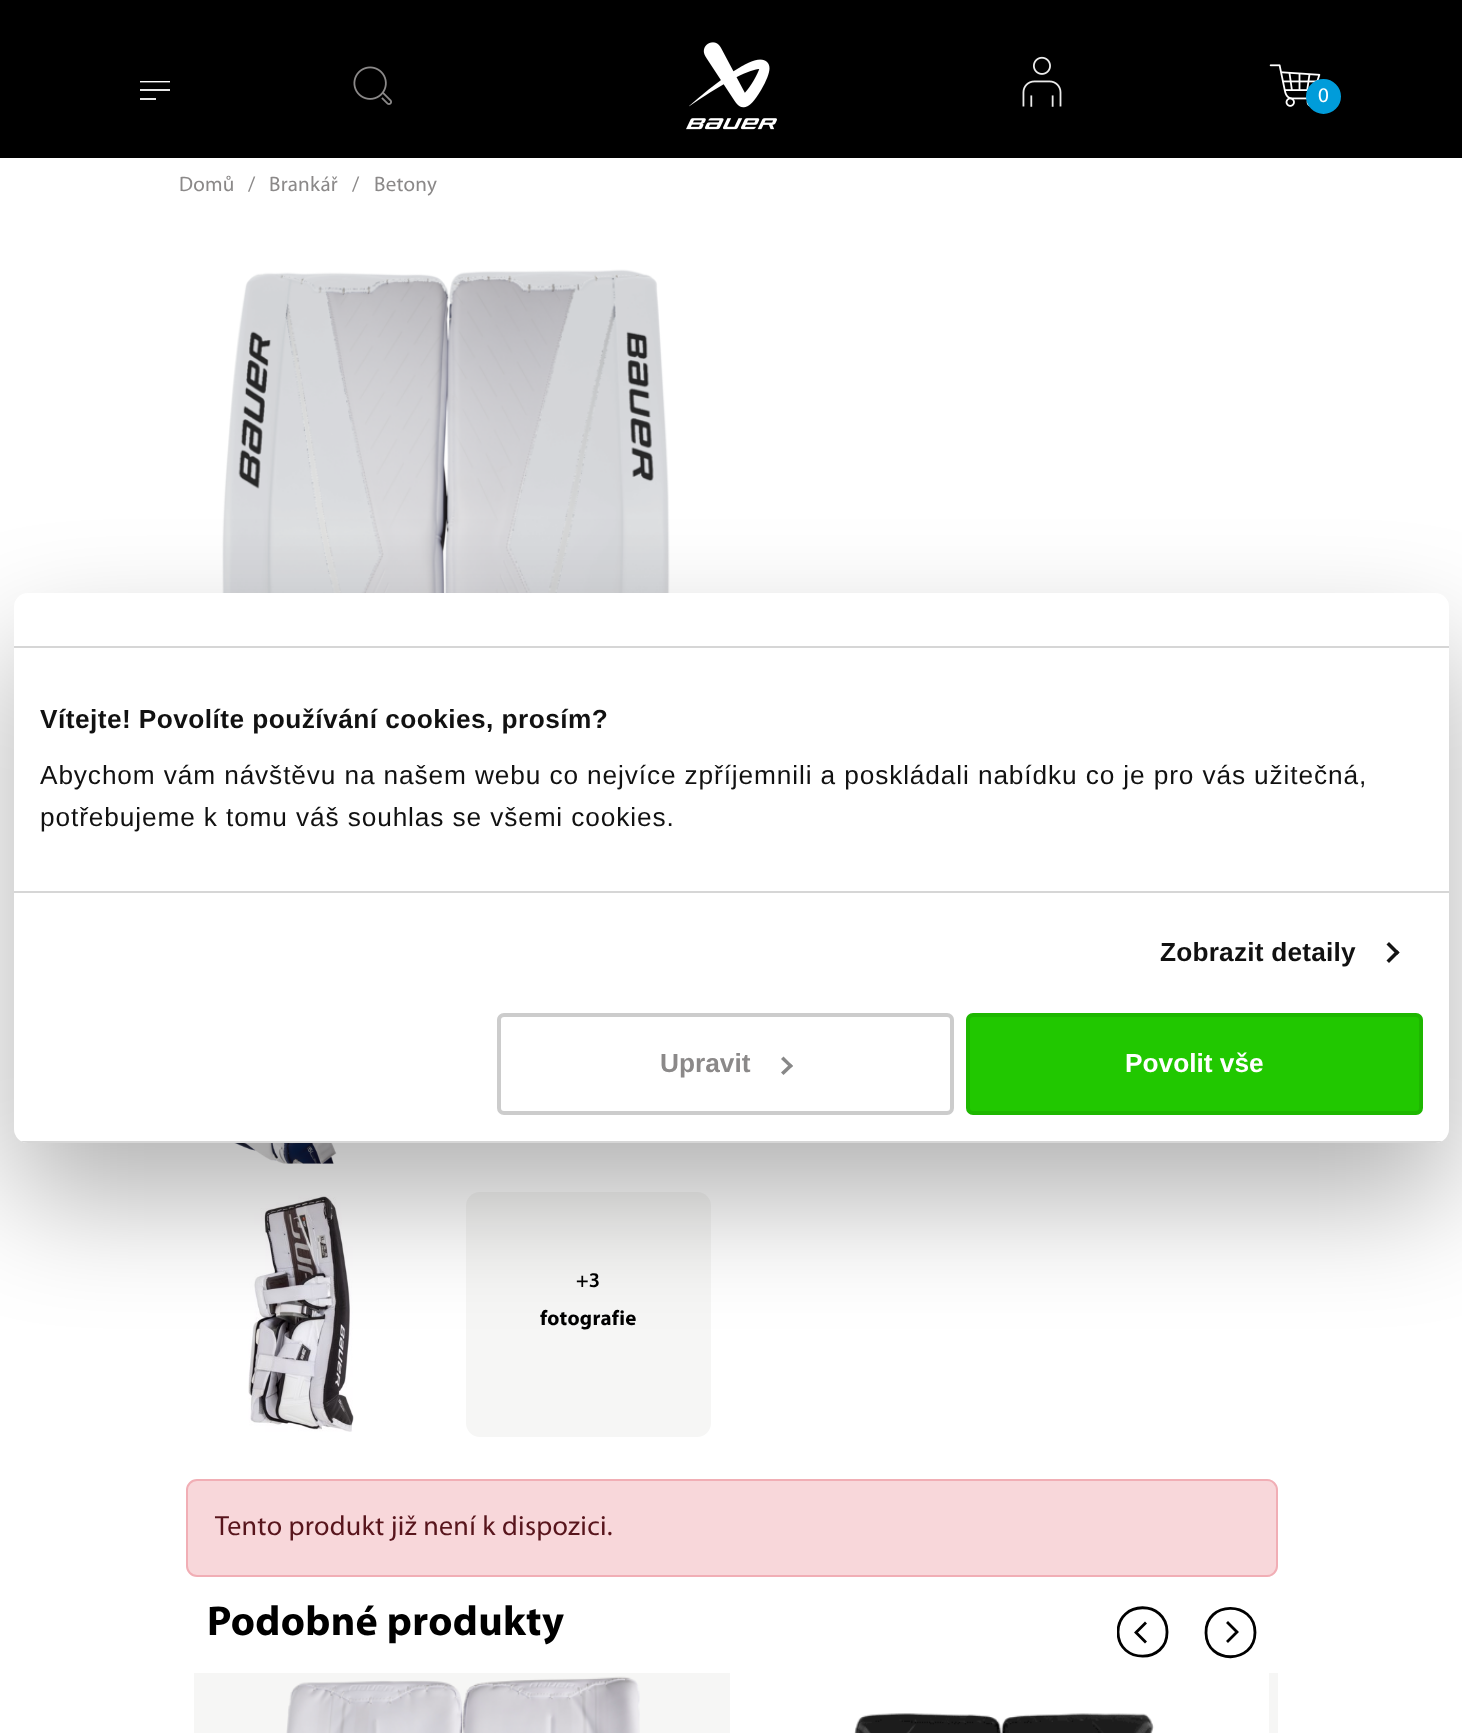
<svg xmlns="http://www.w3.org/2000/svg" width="1462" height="1733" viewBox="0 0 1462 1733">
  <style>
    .t1 { font: 21px Myriad; letter-spacing: 0.25px; fill: #fff; }
    .t2 { font: 21px Myriad; letter-spacing: 0.25px; fill: #8b8989; }
    .t3 { font: 600 21px Myriad; letter-spacing: 0.25px; fill: #000; }
    .t4 { font: bold 21px Myriad; letter-spacing: 0.25px; fill: #000; }
    .t5 { font: 28px Myriad; letter-spacing: 0.3px; fill: #58151c; }
    .t6 { font: bold 42px Myriad; letter-spacing: 0.3px; fill: #000; }
    .t7 { font: bold 26.25px Liberation Sans; letter-spacing: 0.45px; fill: #111; }
    .t8 { font: 26.25px Liberation Sans; letter-spacing: 0.88px; fill: #111; }
    .t9 { font: bold 26.25px Liberation Sans; letter-spacing: 0.2px; fill: #111; }
    .t10 { font: bold 26.25px Liberation Sans; fill: #8b8989; }
    .t11 { font: bold 26.25px Liberation Sans; fill: #fff; }
  </style>
  <defs>
    <clipPath id="clip1"><rect x="140" y="81" width="30" height="19"/></clipPath>
    <clipPath id="clip2"><rect x="1117" y="1605" width="52" height="54"/></clipPath>
    <clipPath id="clip3"><rect x="14" y="593" width="1435" height="550" rx="14"/></clipPath>
  </defs>
  <rect width="100%" height="100%" fill="#fff"/>
  <rect x="0" y="0" width="1462" height="158" fill="#000"/>
  <g clip-path="url(#clip1)">
    <path d="M140 81.5H170" fill="none" stroke="#fff" stroke-width="1.8"/>
  </g>
  <rect x="140" y="89" width="30" height="2" fill="#e6e6e6"/>
  <rect x="140" y="98" width="16" height="2" fill="#e6e6e6"/>
  <image x="353" y="66" width="39" height="39" href="images/1.png"/>
  <image x="686" y="42" width="91" height="88" href="images/2.png"/>
  <image x="1022" y="56" width="40" height="51" href="images/3.png"/>
  <image x="1269" y="64" width="52" height="43" href="images/4.png"/>
  <circle cx="1323.5" cy="96.5" r="16.5" fill="#009cda" stroke="#009cda" stroke-width="2"/>
  <text x="1318" y="102" class="t1">0</text>
  <text x="179" y="191" class="t2">Domů</text>
  <text x="248" y="191" class="t2">/</text>
  <text x="269" y="191" class="t2">Brankář</text>
  <text x="352" y="191" class="t2">/</text>
  <text x="374" y="191" class="t2">Betony</text>
  <image x="221" y="269" width="449" height="324" href="images/5.png"/>
  <image x="234" y="1143" width="103" height="21" href="images/6.png"/>
  <image x="248" y="1195" width="106" height="237" href="images/7.png"/>
  <rect x="466" y="1192" width="245" height="245" rx="14" fill="#f6f6f5"/>
  <text x="576" y="1287" class="t3">+3</text>
  <text x="540" y="1325" class="t4">fotografie</text>
  <rect x="187" y="1480" width="1090" height="96" rx="10" fill="#f8d7da" stroke="#f1aeb5" stroke-width="2"/>
  <text x="215" y="1535" class="t5">Tento produkt již není k dispozici.</text>
  <text x="207" y="1635" class="t6">Podobné produkty</text>
  <g clip-path="url(#clip2)">
    <path d="M1118 1632C1118 1664.5 1168 1664 1167 1631.5C1166.5 1599.5 1118 1600 1118 1632Z" fill="none" stroke="#000" stroke-width="2.8" stroke-linejoin="round"/>
  </g>
  <path d="M1255 1632.5C1255 1600 1205 1600.5 1206 1633C1206.5 1665 1255 1664.5 1255 1632.5Z" fill="none" stroke="#000" stroke-width="2.8" stroke-linejoin="round"/>
  <path d="M1145 1623.5L1136 1632.5M1145 1623.5L1136 1632.5M1136 1632.5L1145 1641.5" fill="none" stroke="#000" stroke-width="2.8" stroke-linecap="square" stroke-linejoin="round"/>
  <path d="M1228 1641L1237 1632M1228 1641L1237 1632M1237 1632L1228 1623" fill="none" stroke="#000" stroke-width="2.8" stroke-linecap="square" stroke-linejoin="round"/>
  <rect x="194" y="1673" width="536" height="60" fill="#f6f6f5"/>
  <image x="286" y="1676" width="354" height="57" href="images/8.png"/>
  <image x="732" y="1673" width="535" height="60" href="images/9.png"/>
  <rect x="1269" y="1673" width="9" height="60" fill="#f6f6f5"/>
  <rect x="14" y="649" width="1435" height="550" rx="14" fill="#0000004d" filter="blur(59.5px)"/>
  <rect x="14" y="593" width="1435" height="550" rx="14" fill="#fff"/>
  <rect x="14" y="646" width="1435" height="2" fill="#d6d6d6"/>
  <rect x="14" y="891" width="1435" height="2" fill="#d6d6d6"/>
  <text x="40" y="728" class="t7">Vítejte! Povolíte používání cookies, prosím?</text>
  <text x="40" y="784" class="t8">Abychom vám návštěvu na našem webu co nejvíce zpříjemnili a poskládali nabídku co je pro vás užitečná,</text>
  <text x="40" y="826" class="t8">potřebujeme k tomu váš souhlas se všemi cookies.</text>
  <text x="1160" y="961" class="t9">Zobrazit detaily</text>
  <path d="M1389 942L1399.5 952.5L1397 955L1386.5 944.5Z" fill="#141414"/>
  <path d="M1397 950L1399.5 952.5L1389 963L1386.5 960.5Z" fill="#141414"/>
  <g clip-path="url(#clip3)">
    <rect x="14" y="1141" width="1435" height="2" fill="#d6d6d6"/>
  </g>
  <rect x="499" y="1015" width="453" height="98" rx="5" fill="none" stroke="#ccc" stroke-width="4"/>
  <text x="660" y="1072" class="t10">Upravit</text>
  <path d="M783.5 1056.5L793 1066L790.5 1068L781 1059Z" fill="#888"/>
  <path d="M790.5 1063.5L793 1066L783.5 1075L781 1072.5Z" fill="#888"/>
  <rect x="968" y="1015" width="453" height="98" rx="5" fill="#21c800" stroke="#1eb700" stroke-width="4"/>
  <text x="1125" y="1072" class="t11">Povolit vše</text>
</svg>
